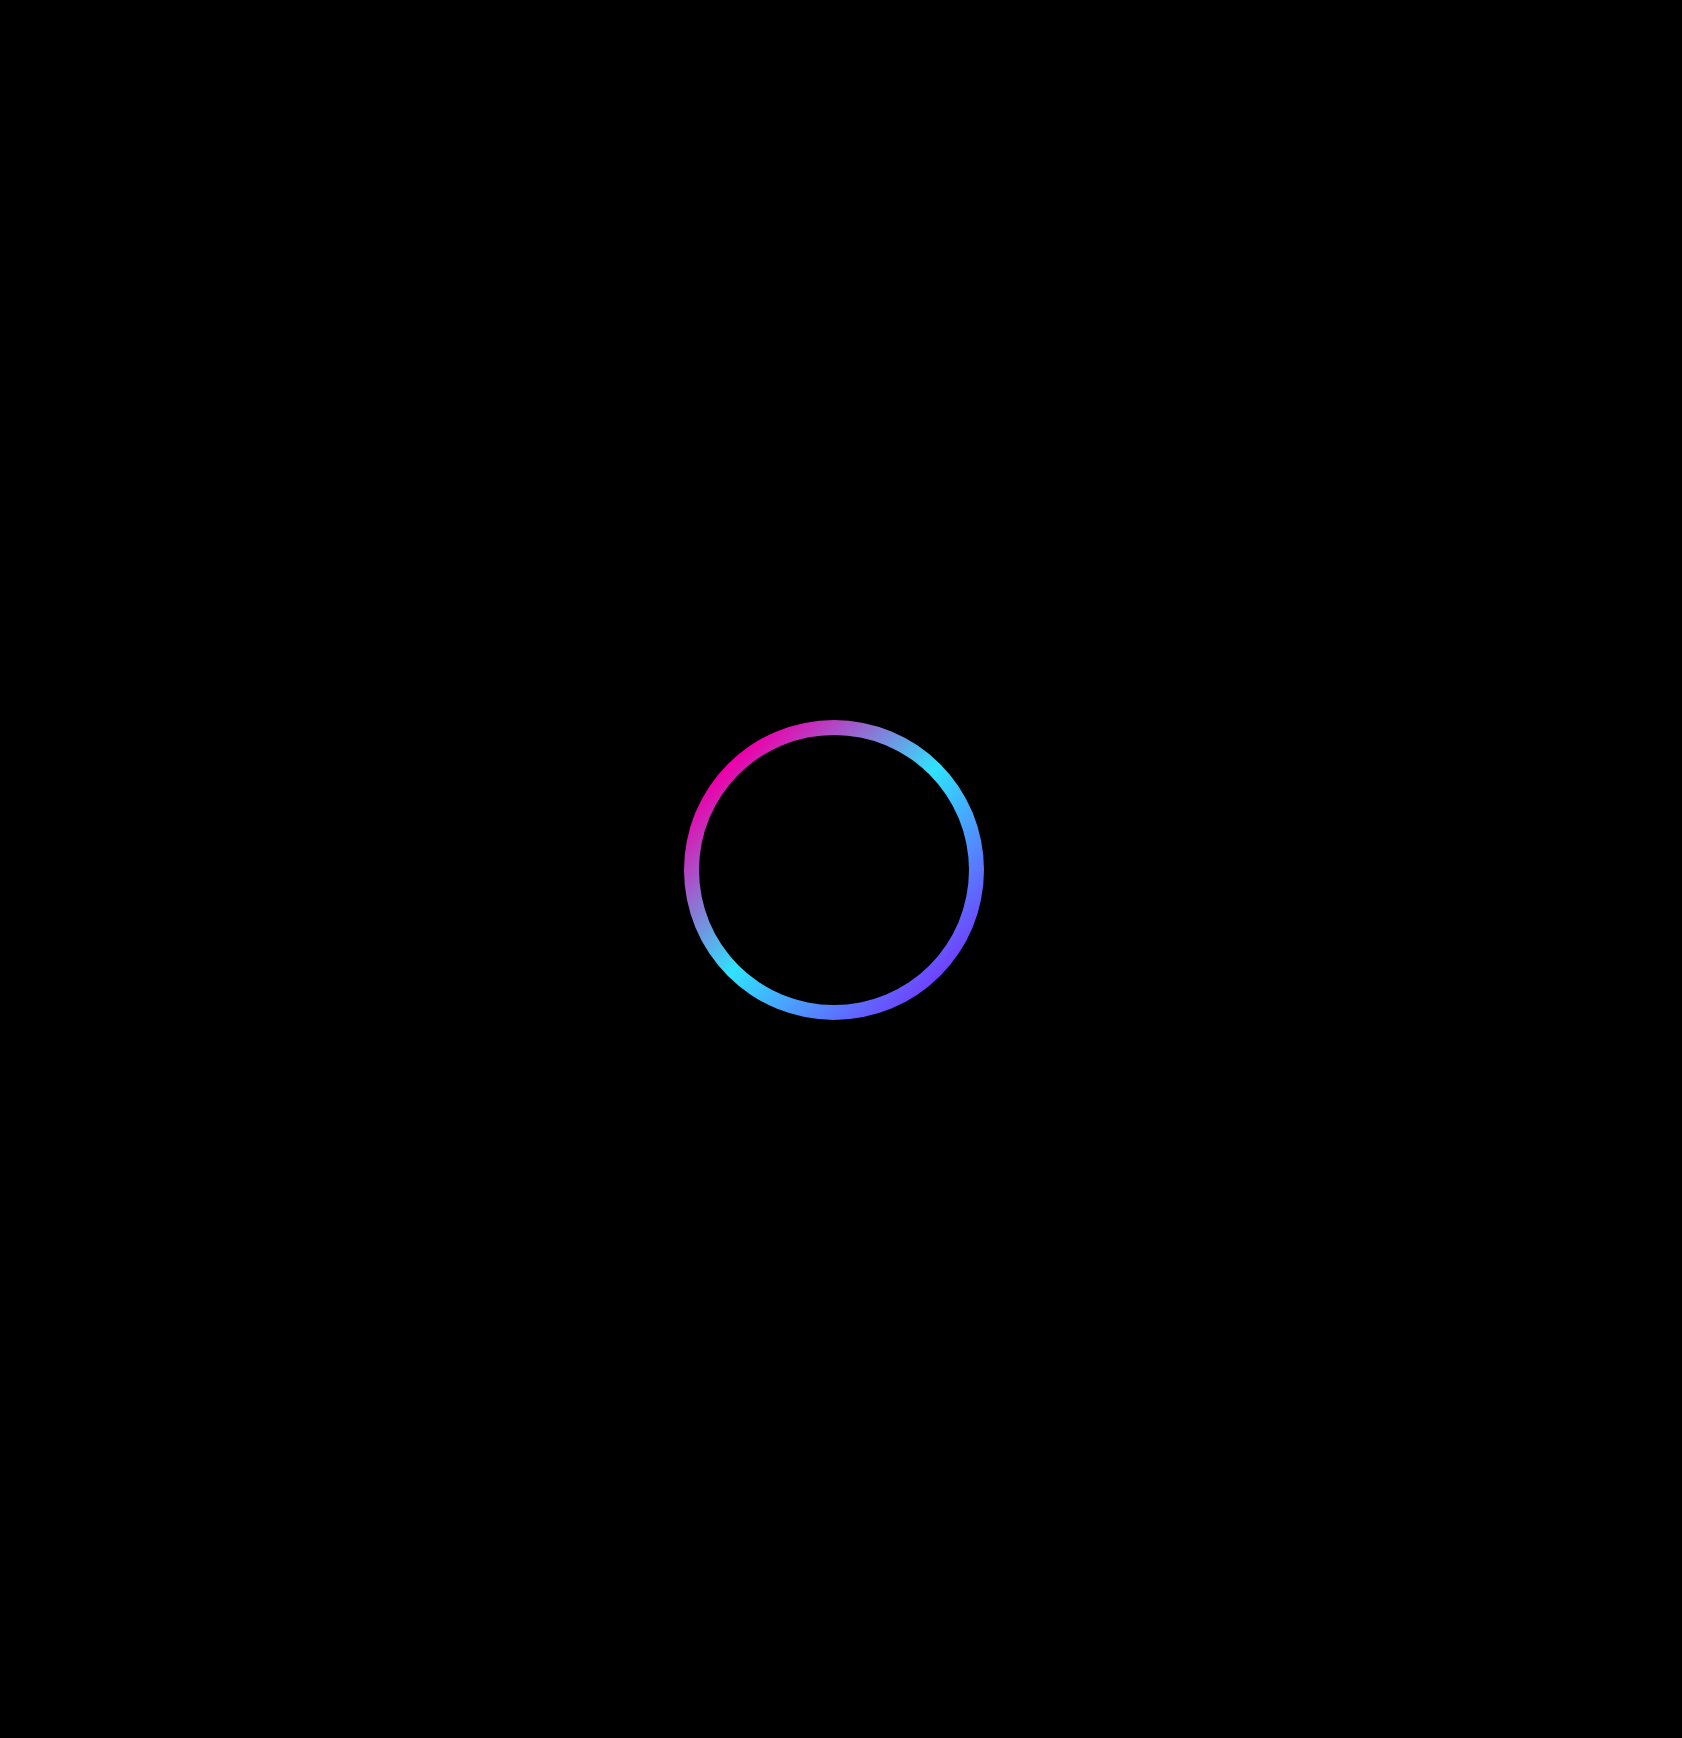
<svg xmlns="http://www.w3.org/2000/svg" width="1682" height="1738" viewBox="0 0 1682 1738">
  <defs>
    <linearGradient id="g1" gradientUnits="userSpaceOnUse" x1="684" y1="720" x2="984" y2="1020"><stop offset="0" stop-color="#feed07"/><stop offset="0.05" stop-color="#fe6a50"/><stop offset="0.15" stop-color="#ed00aa"/><stop offset="0.5" stop-color="#2fe3fe"/><stop offset="1" stop-color="#8900ff"/></linearGradient>
  </defs>
  <rect width="100%" height="100%" fill="#000"/>
  <circle cx="834" cy="870" r="150" fill="url(#g1)"/>
  <circle cx="834" cy="870" r="135" fill="#000"/>
</svg>
